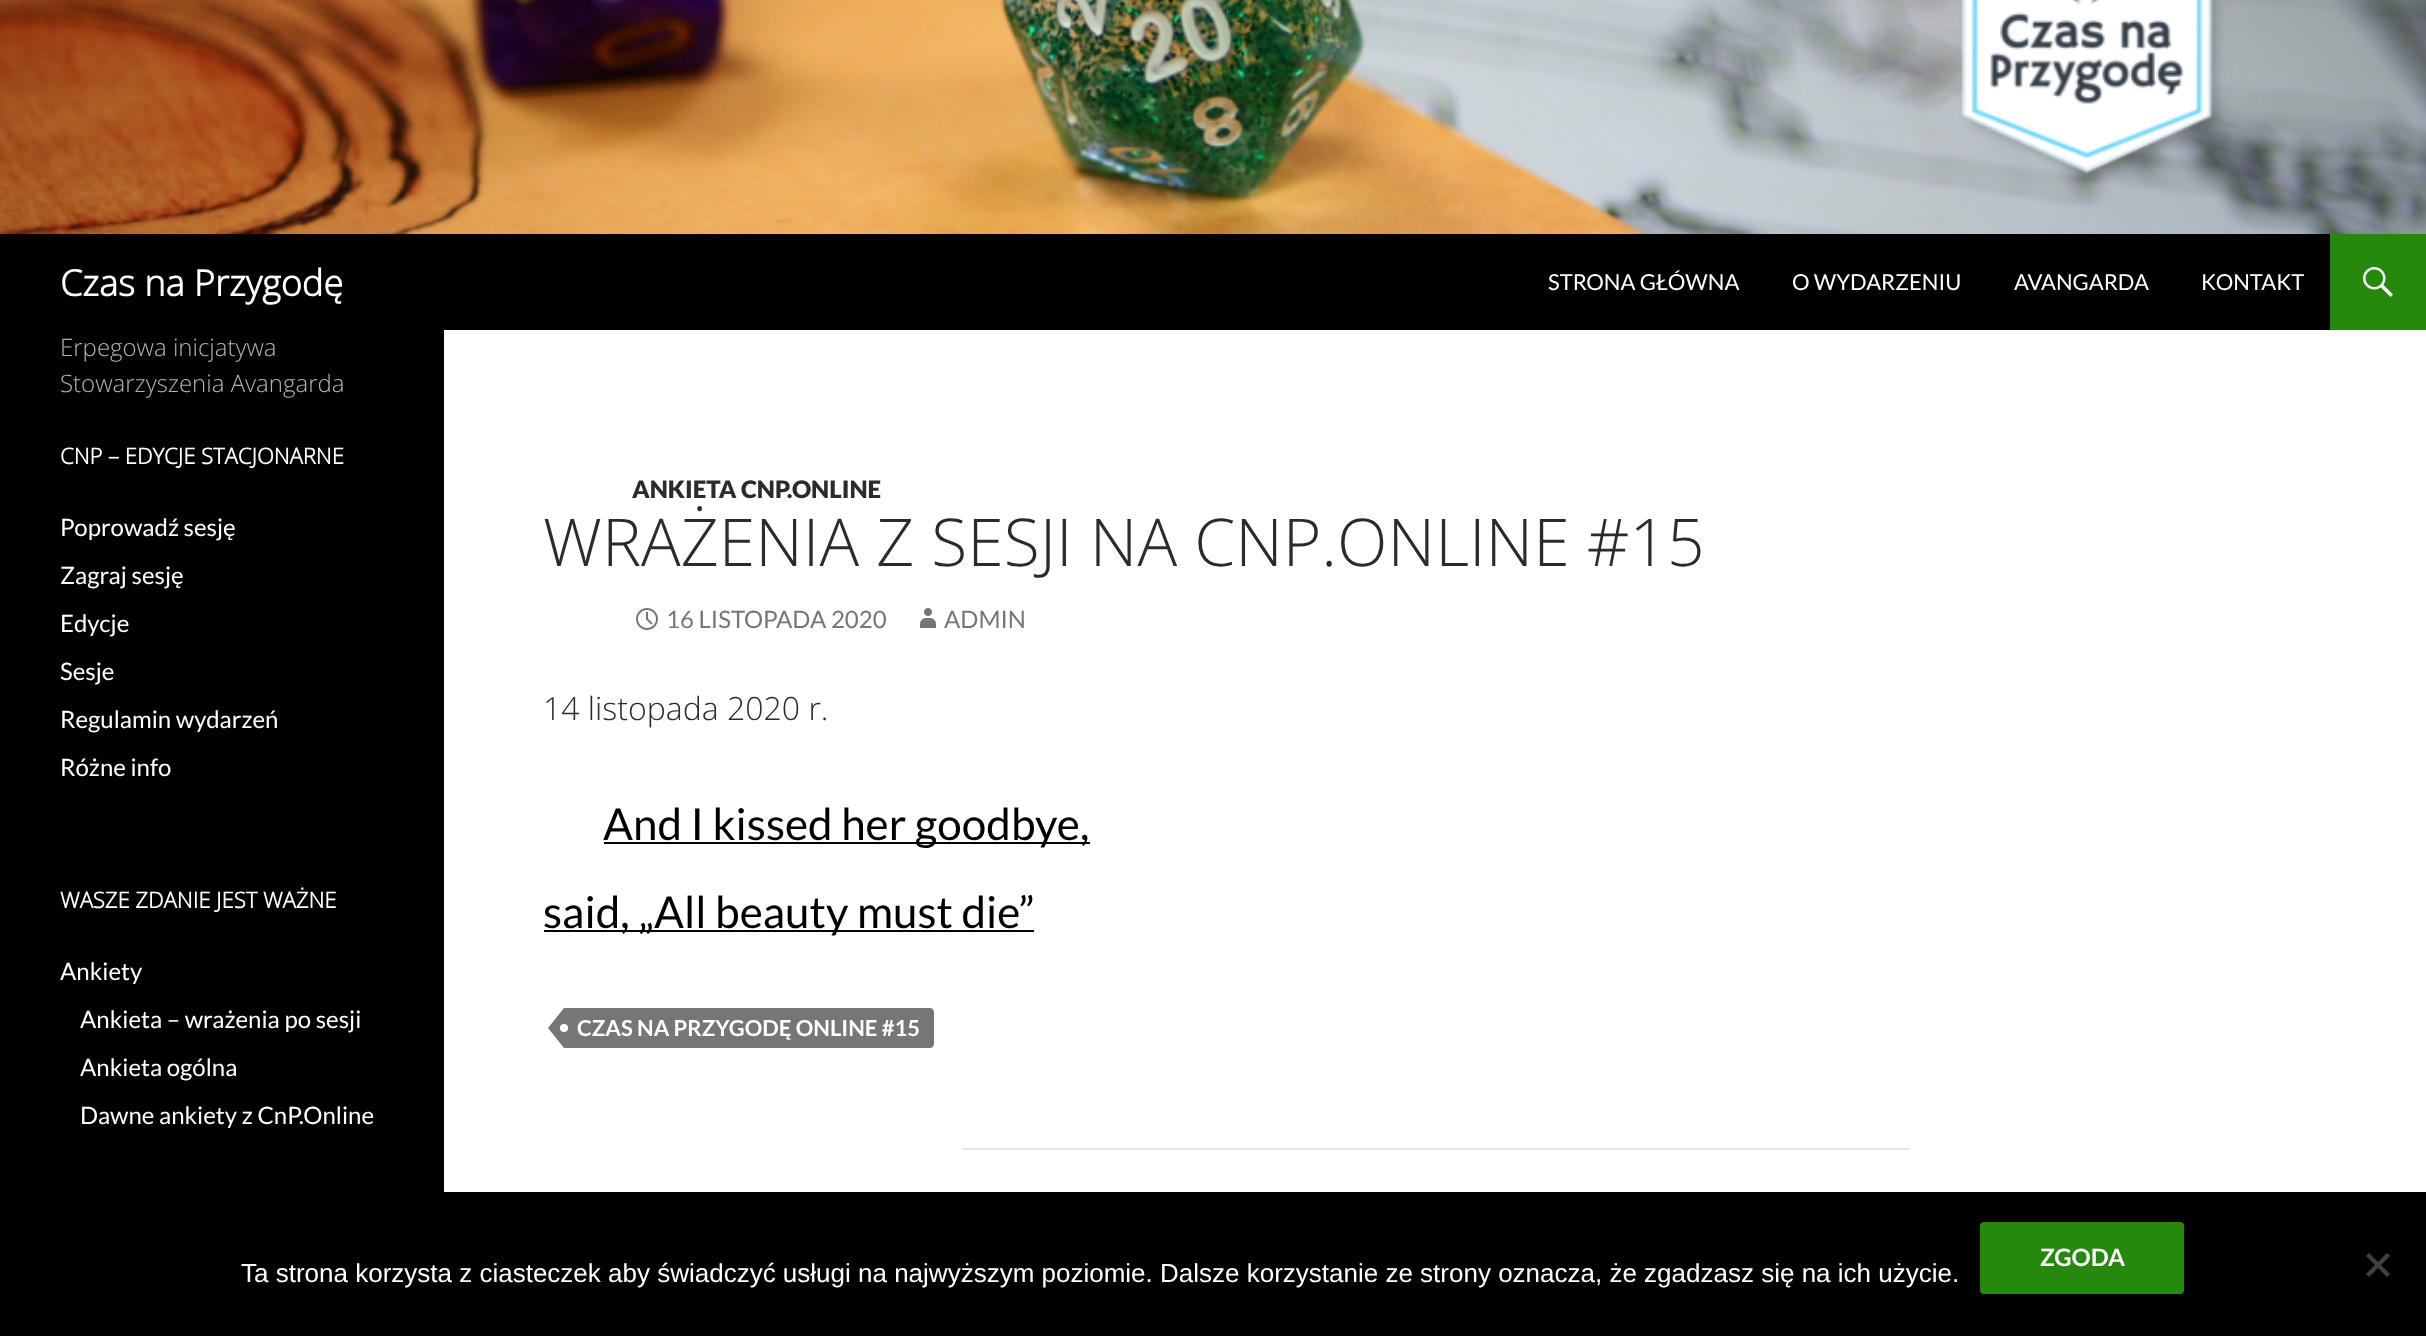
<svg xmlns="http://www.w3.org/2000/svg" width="2426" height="1336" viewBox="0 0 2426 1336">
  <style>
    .t1 { font: bold 36px Open Sans; fill: #fff; }
    .t2 { font: 22px Lato; fill: #fff; }
    .t3 { font: 300 24px Open Sans; fill: #b3b3b3; }
    .t4 { font: bold 22px Open Sans; fill: #fff; }
    .t5 { font: 24px Lato; fill: #fff; }
    .t6 { font: 900 24px Lato; fill: #2b2b2b; }
    .t7 { font: 300 66px Open Sans; fill: #2b2b2b; }
    .t8 { font: 24px Lato; fill: #767676; }
    .t9 { font: 300 32px Open Sans; fill: #2b2b2b; }
    .t10 { font: 44px Lato; fill: #000; }
    .t11 { font: bold 22px Lato; fill: #fff; }
    .t12 { font: 26px Liberation Sans; fill: #fff; }
    .t13 { font: bold 24px Lato; fill: #fff; }
  </style>
  <rect width="100%" height="100%" fill="#fff"/>
  <image x="0" y="0" width="2426" height="234" href="images/1.png"/>
  <rect x="0" y="234" width="2330" height="96" fill="#000"/>
  <text x="60" y="296" class="t1">Czas na Przygodę</text>
  <text x="1548" y="290" class="t2">STRONA GŁÓWNA</text>
  <text x="1792" y="290" class="t2">O WYDARZENIU</text>
  <text x="2014" y="290" class="t2">AVANGARDA</text>
  <text x="2201" y="290" class="t2">KONTAKT</text>
  <rect x="2330" y="234" width="96" height="96" fill="#24890d"/>
  <image x="2363" y="267" width="30" height="30" href="images/2.png"/>
  <rect x="0" y="330" width="444" height="862" fill="#000"/>
  <text x="60" y="356" class="t3">Erpegowa inicjatywa</text>
  <text x="60" y="392" class="t3">Stowarzyszenia Avangarda</text>
  <text x="60" y="464" class="t4">CNP – EDYCJE STACJONARNE</text>
  <text x="60" y="536" class="t5">Poprowadź sesję</text>
  <text x="60" y="584" class="t5">Zagraj sesję</text>
  <text x="60" y="632" class="t5">Edycje</text>
  <text x="60" y="680" class="t5">Sesje</text>
  <text x="60" y="728" class="t5">Regulamin wydarzeń</text>
  <text x="60" y="776" class="t5">Różne info</text>
  <text x="60" y="908" class="t4">WASZE ZDANIE JEST WAŻNE</text>
  <text x="60" y="980" class="t5">Ankiety</text>
  <text x="80" y="1028" class="t5">Ankieta – wrażenia po sesji</text>
  <text x="80" y="1076" class="t5">Ankieta ogólna</text>
  <text x="80" y="1124" class="t5">Dawne ankiety z CnP.Online</text>
  <text x="632" y="498" class="t6">ANKIETA CNP.ONLINE</text>
  <text x="543" y="566" class="t7">WRAŻENIA Z SESJI NA CNP.ONLINE #15</text>
  <image x="636" y="608" width="22" height="22" href="images/3.png"/>
  <text x="666" y="628" class="t8">16 LISTOPADA 2020</text>
  <image x="920" y="608" width="16" height="20" href="images/4.png"/>
  <text x="944" y="628" class="t8">ADMIN</text>
  <text x="543" y="720" class="t9">14 listopada 2020 r.</text>
  <rect x="604" y="842" width="486" height="2" fill="#000"/>
  <text x="603" y="840" class="t10">And I kissed her goodbye,</text>
  <rect x="544" y="930" width="490" height="2" fill="#000"/>
  <text x="543" y="928" class="t10">said, „All beauty must die”</text>
  <path d="M564 1008H930C932 1008 934 1010 934 1012V1044C934 1046 932 1048 930 1048H564Z" fill="#767676"/>
  <path d="M564 1008V1048L548 1028Z" fill="#767676"/>
  <text x="577" y="1036" class="t11">CZAS NA PRZYGODĘ ONLINE #15</text>
  <circle cx="564" cy="1028" r="4" fill="#fff"/>
  <rect x="962" y="1148" width="948" height="2" fill="#e6e6e6"/>
  <rect x="0" y="1192" width="2426" height="144" fill="#000"/>
  <text x="241" y="1282" class="t12">Ta strona korzysta z ciasteczek aby świadczyć usługi na najwyższym poziomie. Dalsze korzystanie ze strony oznacza, że zgadzasz się na ich użycie.</text>
  <rect x="1980" y="1222" width="204" height="72" rx="4" fill="#24890d"/>
  <text x="2040" y="1266" class="t13">ZGODA</text>
  <path d="M2387 1253L2390 1256L2369 1277L2366 1274Z" fill="#404040"/>
  <path d="M2366 1256L2369 1253L2390 1274L2387 1277Z" fill="#404040"/>
</svg>
